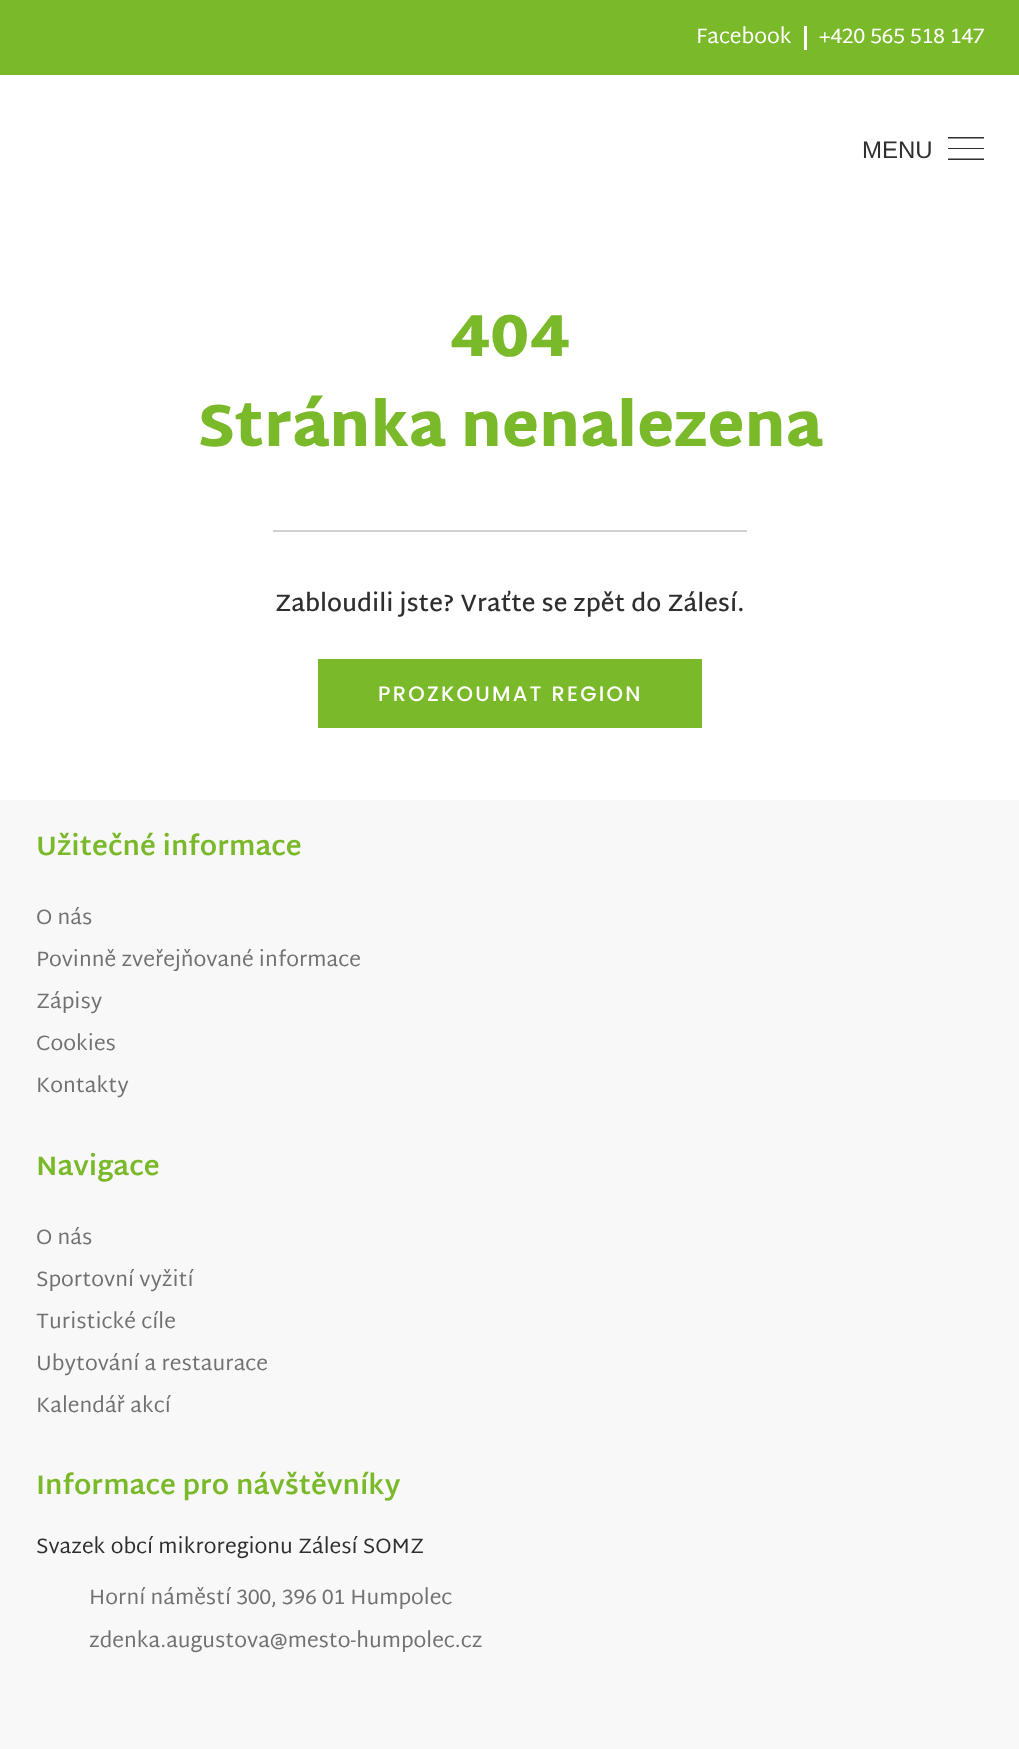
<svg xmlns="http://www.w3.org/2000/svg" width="1019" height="1749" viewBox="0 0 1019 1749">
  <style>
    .t1 { font: 21px Martel Sans; fill: #fff; }
    .t2 { font: 24px Liberation Sans; fill: #302f2f; }
    .t3 { font: 900 60px Martel Sans; fill: #7ab92a; }
    .t4 { font: 600 24px Martel Sans; fill: #302f2f; }
    .t5 { font: 500 21px Poppins; letter-spacing: 2.25px; fill: #fff; }
    .t6 { font: bold 27px Martel Sans; fill: #7ab92a; }
    .t7 { font: 21px Martel Sans; fill: #727171; }
    .t8 { font: 21px Martel Sans; fill: #302f2f; }
  </style>
  <rect width="100%" height="100%" fill="#fff"/>
  <rect x="0" y="0" width="1019" height="75" fill="#7ab92a"/>
  <text x="696" y="43" class="t1">Facebook</text>
  <rect x="804" y="26" width="3" height="24" fill="#fff"/>
  <text x="819" y="43" class="t1">+420 565 518 147</text>
  <text x="862" y="158" class="t2">MENU</text>
  <path d="M948 137V138.5H984V137ZM948 148V149H984V148ZM948 158.5V160H984V158.5Z" fill="#302f2f"/>
  <text x="450" y="356" class="t3">404</text>
  <text x="198" y="446" class="t3">Stránka nenalezena</text>
  <rect x="273" y="530" width="474" height="2" fill="#d0d0d0"/>
  <text x="275" y="611" class="t4">Zabloudili jste? Vraťte se zpět do Zálesí.</text>
  <rect x="318" y="659" width="384" height="69" fill="#7ab92a"/>
  <text x="378" y="701" class="t5">PROZKOUMAT REGION</text>
  <rect x="0" y="800" width="1019" height="949" fill="#f8f8f8"/>
  <text x="36" y="855" class="t6">Užitečné informace</text>
  <text x="36" y="924" class="t7">O nás</text>
  <text x="36" y="966" class="t7">Povinně zveřejňované informace</text>
  <text x="36" y="1008" class="t7">Zápisy</text>
  <text x="36" y="1050" class="t7">Cookies</text>
  <text x="36" y="1092" class="t7">Kontakty</text>
  <text x="36" y="1175" class="t6">Navigace</text>
  <text x="36" y="1244" class="t7">O nás</text>
  <text x="36" y="1286" class="t7">Sportovní vyžití</text>
  <text x="36" y="1328" class="t7">Turistické cíle</text>
  <text x="36" y="1370" class="t7">Ubytování a restaurace</text>
  <text x="36" y="1412" class="t7">Kalendář akcí</text>
  <text x="36" y="1494" class="t6">Informace pro návštěvníky</text>
  <text x="36" y="1553" class="t8">Svazek obcí mikroregionu Zálesí SOMZ</text>
  <text x="89" y="1604" class="t7">Horní náměstí 300, 396 01 Humpolec</text>
  <text x="89" y="1647" class="t7">zdenka.augustova@mesto-humpolec.cz</text>
</svg>
